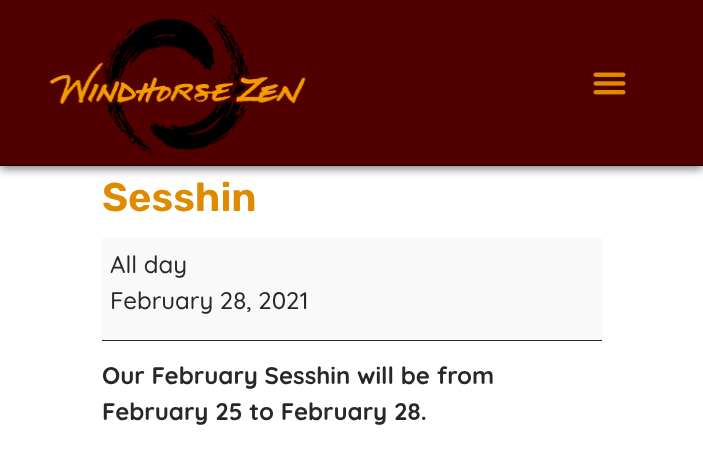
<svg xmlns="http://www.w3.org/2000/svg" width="703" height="464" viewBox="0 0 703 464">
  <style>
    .t1 { font: 600 40px Rubik; fill: #de8b00; }
    .t2 { font: 500 24px Quicksand; fill: #282828; }
    .t3 { font: bold 24px Quicksand; fill: #282828; }
  </style>
  <rect width="100%" height="100%" fill="#fff"/>
  <rect x="0" y="3" width="703" height="166" fill="#00000080" filter="blur(5px)"/>
  <rect x="0" y="0" width="703" height="165" fill="#510000"/>
  <rect x="0" y="165" width="703" height="1" fill="#000"/>
  <image x="49" y="10" width="257" height="146" href="images/1.png"/>
  <image x="593" y="72" width="33" height="23" href="images/2.png"/>
  <text x="102" y="211" class="t1">Sesshin</text>
  <rect x="102" y="238" width="500" height="102" fill="#f9f9f9"/>
  <rect x="102" y="340" width="500" height="1" fill="#282828"/>
  <text x="110" y="273" class="t2">All day</text>
  <text x="110" y="309" class="t2">February 28, 2021</text>
  <text x="102" y="384" class="t3">Our February Sesshin will be from</text>
  <text x="102" y="420" class="t3">February 25 to February 28.</text>
</svg>
